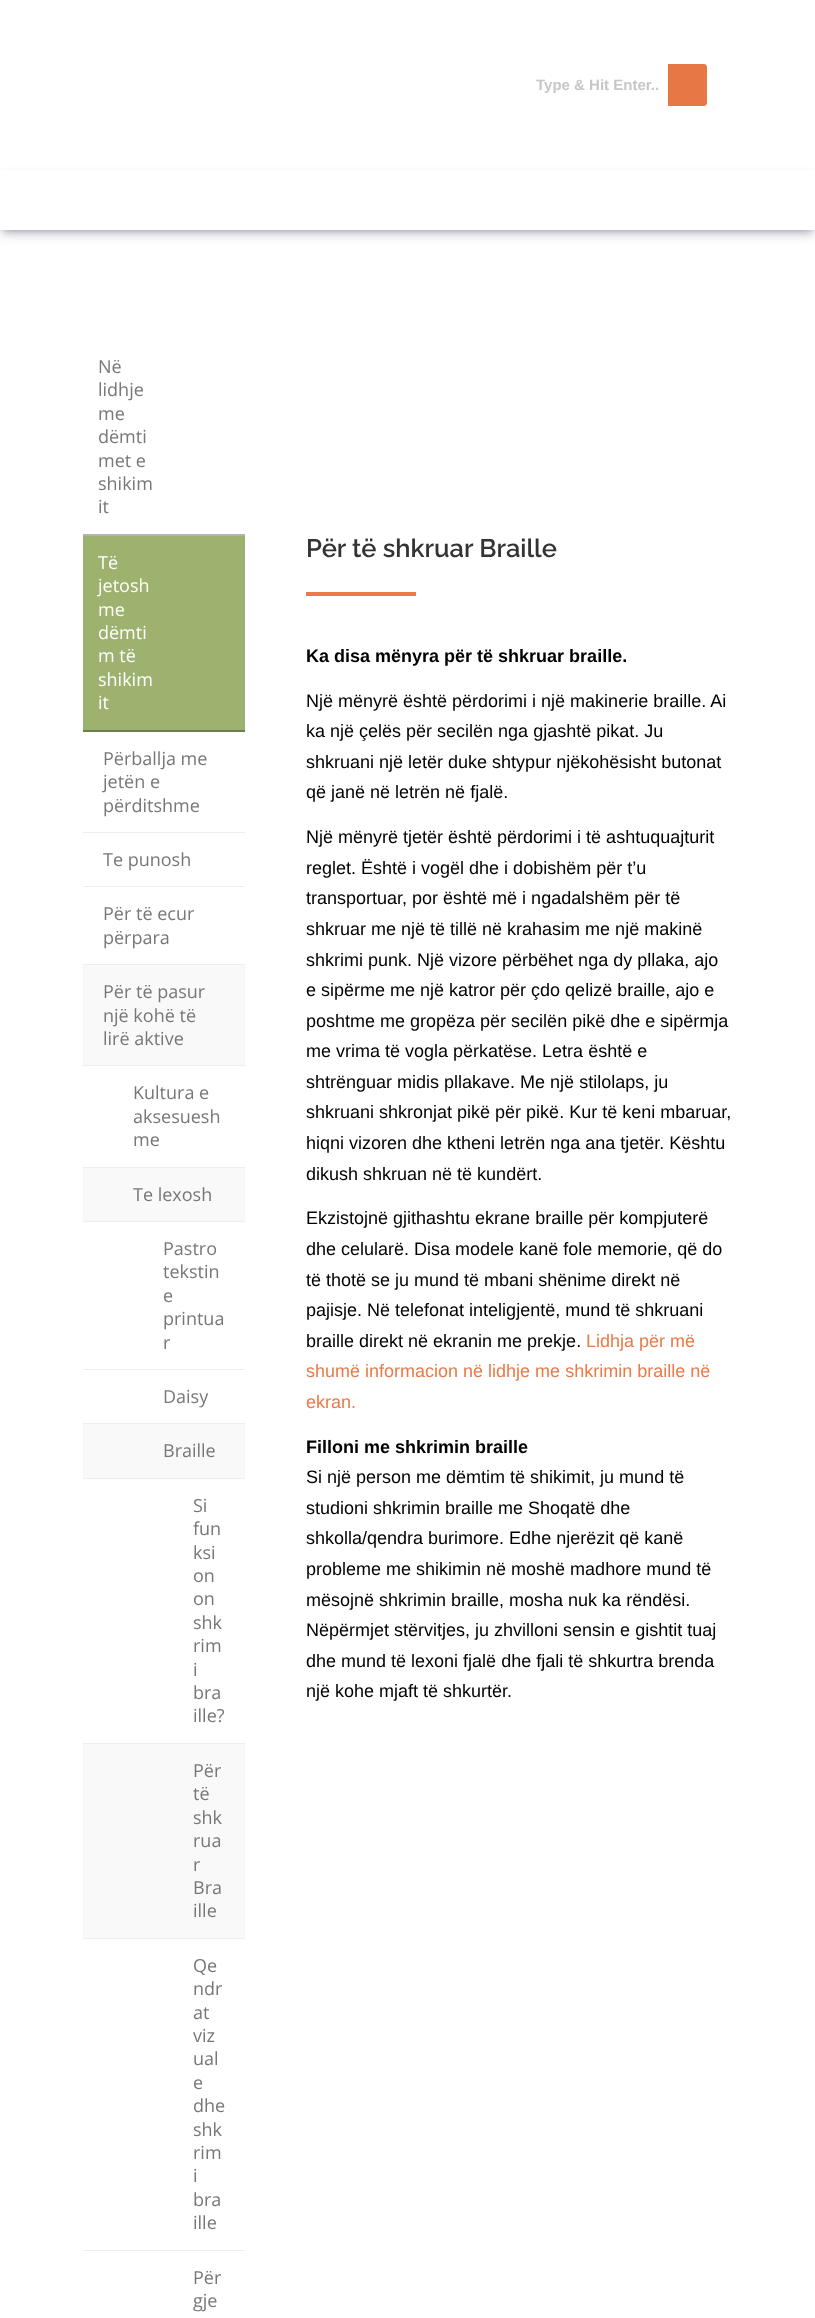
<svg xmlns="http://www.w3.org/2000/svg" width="815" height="2318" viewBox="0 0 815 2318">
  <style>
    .t1 { font: bold 15px Liberation Sans; fill: #c7c7c7; }
    .t2 { font: 18px Open Sans; fill: #777; }
    .t3 { font: 18px Open Sans; fill: #fff; }
    .t4 { font: 600 25.5px Raleway; fill: #333; }
    .t5 { font: bold 18px Liberation Sans; fill: #000; }
    .t6 { font: 18px Liberation Sans; fill: #000; }
    .t7 { font: 18px Liberation Sans; fill: #ea7a47; }
  </style>
  <defs>
    <clipPath id="clip1"><rect x="536" y="76" width="124" height="17"/></clipPath>
  </defs>
  <rect width="100%" height="100%" fill="#fff"/>
  <g clip-path="url(#clip1)">
    <text x="536" y="90" class="t1">Type &amp; Hit Enter..</text>
  </g>
  <path d="M668 64H704C705.5 64 707 65.5 707 67V103C707 104.5 705.5 106 704 106H668Z" fill="#e77845"/>
  <rect x="3" y="176" width="809" height="54" fill="#0000004d" filter="blur(3.5px)"/>
  <rect x="2" y="178" width="811" height="56" fill="#32325d40" filter="blur(6px)"/>
  <rect x="0" y="170" width="815" height="60" fill="#fff"/>
  <rect x="83" y="534" width="162" height="2" fill="#b3b3b3"/>
  <text x="98" y="373" class="t2">Në</text>
  <text x="98" y="396" class="t2">lidhje</text>
  <text x="98" y="420" class="t2">me</text>
  <text x="98" y="443" class="t2">dëmti</text>
  <text x="98" y="467" class="t2">met e</text>
  <text x="98" y="490" class="t2">shikim</text>
  <text x="98" y="513" class="t2">it</text>
  <rect x="83" y="536" width="162" height="194" fill="#9db26f"/>
  <rect x="83" y="730" width="162" height="2" fill="#6e7d4e"/>
  <text x="98" y="569" class="t3">Të</text>
  <text x="98" y="592" class="t3">jetosh</text>
  <text x="98" y="616" class="t3">me</text>
  <text x="98" y="639" class="t3">dëmti</text>
  <text x="98" y="662" class="t3">m të</text>
  <text x="98" y="686" class="t3">shikim</text>
  <text x="98" y="709" class="t3">it</text>
  <rect x="83" y="832" width="162" height="1" fill="#eee"/>
  <text x="103" y="765" class="t2">Përballja me</text>
  <text x="103" y="788" class="t2">jetën e</text>
  <text x="103" y="812" class="t2">përditshme</text>
  <rect x="83" y="886" width="162" height="1" fill="#eee"/>
  <text x="103" y="866" class="t2">Te punosh</text>
  <rect x="83" y="964" width="162" height="1" fill="#eee"/>
  <text x="103" y="920" class="t2">Për të ecur</text>
  <text x="103" y="944" class="t2">përpara</text>
  <rect x="83" y="965" width="162" height="100" fill="#f9f9f9"/>
  <rect x="83" y="1065" width="162" height="1" fill="#eee"/>
  <text x="103" y="998" class="t2">Për të pasur</text>
  <text x="103" y="1022" class="t2">një kohë të</text>
  <text x="103" y="1045" class="t2">lirë aktive</text>
  <rect x="83" y="1167" width="162" height="1" fill="#eee"/>
  <text x="133" y="1099" class="t2">Kultura e</text>
  <text x="133" y="1123" class="t2">aksesuesh</text>
  <text x="133" y="1146" class="t2">me</text>
  <rect x="83" y="1168" width="162" height="53" fill="#f9f9f9"/>
  <rect x="83" y="1221" width="162" height="1" fill="#eee"/>
  <text x="133" y="1201" class="t2">Te lexosh</text>
  <rect x="83" y="1369" width="162" height="1" fill="#eee"/>
  <text x="163" y="1255" class="t2">Pastro</text>
  <text x="163" y="1278" class="t2">tekstin</text>
  <text x="163" y="1302" class="t2">e</text>
  <text x="163" y="1325" class="t2">printua</text>
  <text x="163" y="1349" class="t2">r</text>
  <rect x="83" y="1423" width="162" height="1" fill="#eee"/>
  <text x="163" y="1403" class="t2">Daisy</text>
  <rect x="83" y="1424" width="162" height="54" fill="#f9f9f9"/>
  <rect x="83" y="1478" width="162" height="1" fill="#eee"/>
  <text x="163" y="1457" class="t2">Braille</text>
  <rect x="83" y="1743" width="162" height="1" fill="#eee"/>
  <text x="193" y="1512" class="t2">Si</text>
  <text x="193" y="1535" class="t2">fun</text>
  <text x="193" y="1559" class="t2">ksi</text>
  <text x="193" y="1582" class="t2">on</text>
  <text x="193" y="1605" class="t2">on</text>
  <text x="193" y="1629" class="t2">shk</text>
  <text x="193" y="1652" class="t2">rim</text>
  <text x="193" y="1676" class="t2">i</text>
  <text x="193" y="1699" class="t2">bra</text>
  <text x="193" y="1722" class="t2">ille?</text>
  <rect x="83" y="1744" width="162" height="194" fill="#f9f9f9"/>
  <rect x="83" y="1938" width="162" height="1" fill="#eee"/>
  <text x="193" y="1777" class="t2">Për</text>
  <text x="193" y="1800" class="t2">të</text>
  <text x="193" y="1824" class="t2">shk</text>
  <text x="193" y="1847" class="t2">rua</text>
  <text x="193" y="1871" class="t2">r</text>
  <text x="193" y="1894" class="t2">Bra</text>
  <text x="193" y="1917" class="t2">ille</text>
  <rect x="83" y="2250" width="162" height="1" fill="#eee"/>
  <text x="193" y="1972" class="t2">Qe</text>
  <text x="193" y="1995" class="t2">ndr</text>
  <text x="193" y="2019" class="t2">at</text>
  <text x="193" y="2042" class="t2">viz</text>
  <text x="193" y="2065" class="t2">ual</text>
  <text x="193" y="2089" class="t2">e</text>
  <text x="193" y="2112" class="t2">dhe</text>
  <text x="193" y="2136" class="t2">shk</text>
  <text x="193" y="2159" class="t2">rim</text>
  <text x="193" y="2182" class="t2">i</text>
  <text x="193" y="2206" class="t2">bra</text>
  <text x="193" y="2229" class="t2">ille</text>
  <text x="193" y="2284" class="t2">Për</text>
  <text x="193" y="2307" class="t2">gje</text>
  <text x="306" y="557" class="t4">Për të shkruar Braille</text>
  <rect x="306" y="592" width="110" height="4" fill="#ea7a47"/>
  <text x="306" y="662" class="t5">Ka disa mënyra për të shkruar braille.</text>
  <text x="306" y="707" class="t6">Një mënyrë është përdorimi i një makinerie braille. Ai</text>
  <text x="306" y="737" class="t6">ka një çelës për secilën nga gjashtë pikat. Ju</text>
  <text x="306" y="768" class="t6">shkruani një letër duke shtypur njëkohësisht butonat</text>
  <text x="306" y="798" class="t6">që janë në letrën në fjalë.</text>
  <text x="306" y="843" class="t6">Një mënyrë tjetër është përdorimi i të ashtuquajturit</text>
  <text x="306" y="874" class="t6">reglet. Është i vogël dhe i dobishëm për t’u</text>
  <text x="306" y="904" class="t6">transportuar, por është më i ngadalshëm për të</text>
  <text x="306" y="935" class="t6">shkruar me një të tillë në krahasim me një makinë</text>
  <text x="306" y="966" class="t6">shkrimi punk. Një vizore përbëhet nga dy pllaka, ajo</text>
  <text x="306" y="996" class="t6">e sipërme me një katror për çdo qelizë braille, ajo e</text>
  <text x="306" y="1027" class="t6">poshtme me gropëza për secilën pikë dhe e sipërmja</text>
  <text x="306" y="1057" class="t6">me vrima të vogla përkatëse. Letra është e</text>
  <text x="306" y="1088" class="t6">shtrënguar midis pllakave. Me një stilolaps, ju</text>
  <text x="306" y="1118" class="t6">shkruani shkronjat pikë për pikë. Kur të keni mbaruar,</text>
  <text x="306" y="1149" class="t6">hiqni vizoren dhe ktheni letrën nga ana tjetër. Kështu</text>
  <text x="306" y="1180" class="t6">dikush shkruan në të kundërt.</text>
  <text x="306" y="1224" class="t6">Ekzistojnë gjithashtu ekrane braille për kompjuterë</text>
  <text x="306" y="1255" class="t6">dhe celularë. Disa modele kanë fole memorie, që do</text>
  <text x="306" y="1286" class="t6">të thotë se ju mund të mbani shënime direkt në</text>
  <text x="306" y="1316" class="t6">pajisje. Në telefonat inteligjentë, mund të shkruani</text>
  <text x="306" y="1347" class="t6">braille direkt në ekranin me prekje.</text>
  <text x="586" y="1347" class="t7">Lidhja për më</text>
  <text x="306" y="1377" class="t7">shumë informacion në lidhje me shkrimin braille në</text>
  <text x="306" y="1408" class="t7">ekran.</text>
  <text x="306" y="1453" class="t5">Filloni me shkrimin braille</text>
  <text x="306" y="1483" class="t6">Si një person me dëmtim të shikimit, ju mund të</text>
  <text x="306" y="1514" class="t6">studioni shkrimin braille me Shoqatë dhe</text>
  <text x="306" y="1544" class="t6">shkolla/qendra burimore. Edhe njerëzit që kanë</text>
  <text x="306" y="1575" class="t6">probleme me shikimin në moshë madhore mund të</text>
  <text x="306" y="1606" class="t6">mësojnë shkrimin braille, mosha nuk ka rëndësi.</text>
  <text x="306" y="1636" class="t6">Nëpërmjet stërvitjes, ju zhvilloni sensin e gishtit tuaj</text>
  <text x="306" y="1667" class="t6">dhe mund të lexoni fjalë dhe fjali të shkurtra brenda</text>
  <text x="306" y="1697" class="t6">një kohe mjaft të shkurtër.</text>
</svg>
